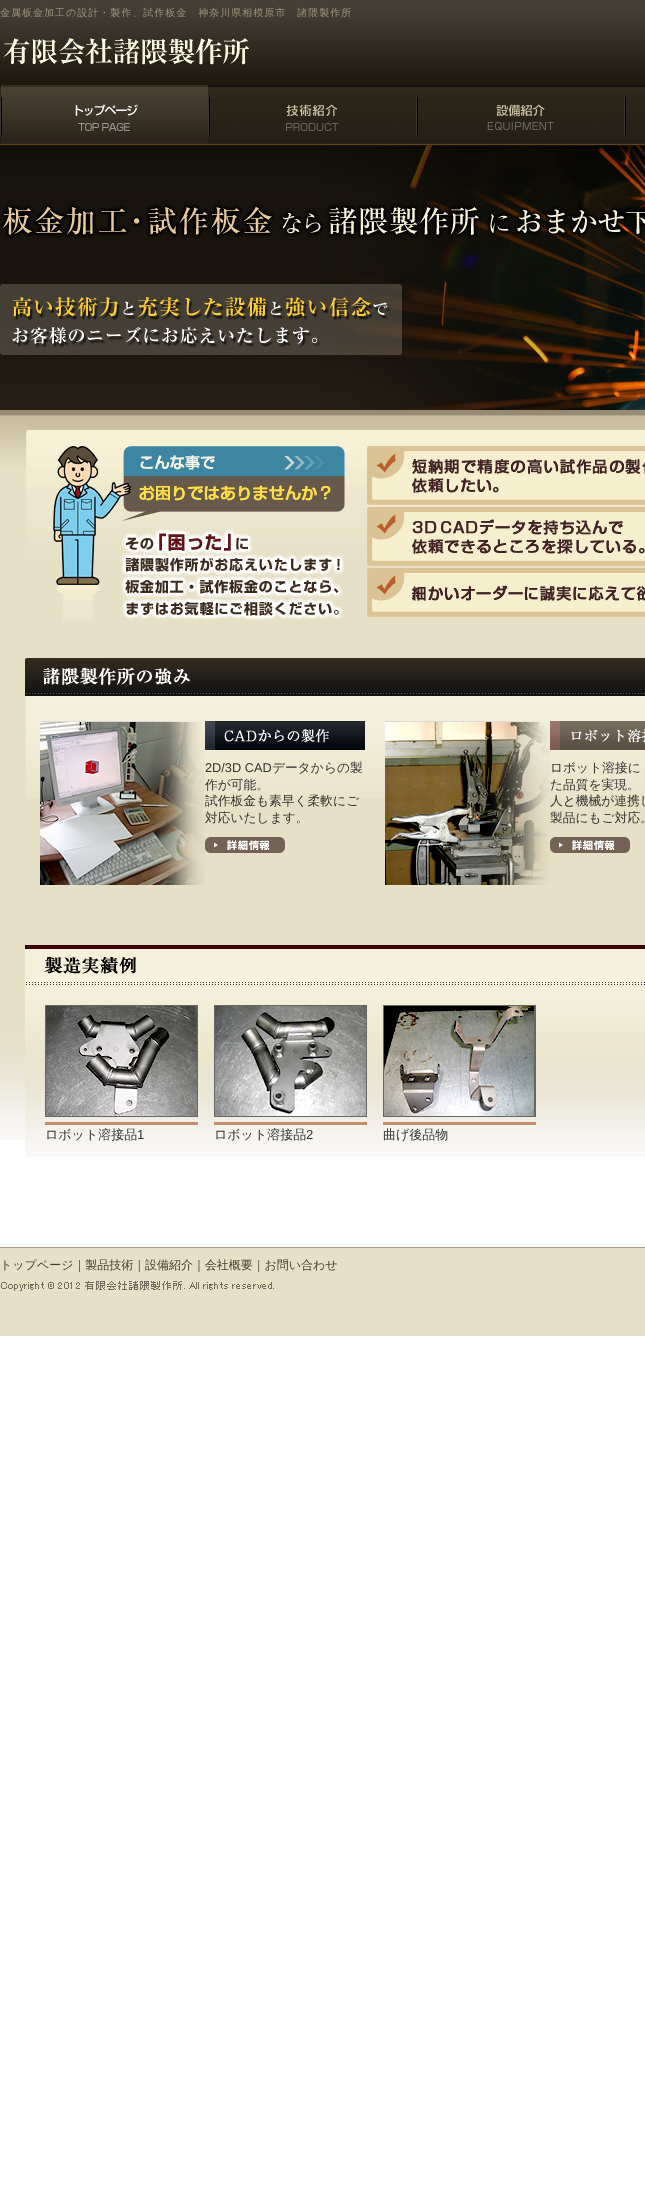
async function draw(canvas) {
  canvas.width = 645
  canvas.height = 2211
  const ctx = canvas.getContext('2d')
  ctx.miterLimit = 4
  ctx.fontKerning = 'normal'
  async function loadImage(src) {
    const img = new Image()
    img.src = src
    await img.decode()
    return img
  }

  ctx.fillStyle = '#fff'
  ctx.fillRect(0, 0, 645, 2211)
  ctx.drawImage(await loadImage('image0.png'), 0, 0, 645, 145)
  ctx.drawImage(await loadImage('image1.png'), 3, 38, 246, 27)
  ctx.letterSpacing = '1px'
  ctx.font = '500 10px WenQuanYi Zen Hei'
  ctx.fillStyle = '#9f927d'
  ctx.fillText('金属板金加工の設計・製作、試作板金　神奈川県相模原市　諸隈製作所', 0, 16)
  ctx.drawImage(await loadImage('image2.png'), 0, 85, 208, 59)
  ctx.drawImage(await loadImage('image3.png'), 208, 97, 208, 38)
  ctx.drawImage(await loadImage('image4.png'), 416, 97, 208, 38)
  ctx.drawImage(await loadImage('image5.png'), 624, 97, 2, 38)
  ctx.drawImage(await loadImage('image6.png'), 0, 145, 645, 265)
  ctx.drawImage(await loadImage('image7.png'), 0, 410, 645, 730)
  ctx.drawImage(await loadImage('image8.png'), 25, 430, 620, 191)
  ctx.drawImage(await loadImage('image9.png'), 25, 658, 620, 38)
  ctx.drawImage(await loadImage('image10.png'), 26, 696, 619, 102)
  ctx.drawImage(await loadImage('image11.png'), 40, 721, 165, 164)
  ctx.drawImage(await loadImage('image12.png'), 205, 721, 160, 29)
  ctx.letterSpacing = '0px'
  ctx.font = '12.75px Liberation Sans'
  ctx.fillStyle = '#333'
  ctx.fillText('2D/3D CAD', 205, 772)
  ctx.font = '500 12.75px WenQuanYi Zen Hei'
  ctx.fillText('データからの製', 272, 772)
  ctx.fillText('作が可能。', 205, 789)
  ctx.fillText('試作板金も素早く柔軟にご', 205, 805)
  ctx.fillText('対応いたします。', 205, 822)
  ctx.drawImage(await loadImage('image13.png'), 205, 837, 80, 16)
  ctx.drawImage(await loadImage('image14.png'), 385, 721, 165, 164)
  ctx.drawImage(await loadImage('image15.png'), 550, 721, 95, 29)
  ctx.fillText('ロボット溶接に', 550, 772)
  ctx.fillText('た品質を実現。', 550, 789)
  ctx.fillText('人と機械が連携し', 550, 805)
  ctx.fillText('製品にもご対応。', 550, 822)
  ctx.drawImage(await loadImage('image13.png'), 550, 837, 80, 16)
  ctx.drawImage(await loadImage('image16.png'), 25, 945, 620, 40)
  ctx.drawImage(await loadImage('image17.png'), 25, 985, 620, 172)
  ctx.strokeStyle = '#666'
  ctx.strokeRect(45.5, 1005.5, 152, 111)
  ctx.drawImage(await loadImage('image18.png'), 46, 1006, 151, 110)
  ctx.fillStyle = '#c48e6d'
  ctx.fillRect(45, 1122, 153, 3)
  ctx.font = '500 13px WenQuanYi Zen Hei'
  ctx.fillStyle = '#333'
  ctx.fillText('ロボット溶接品', 45, 1139)
  ctx.font = '13px Liberation Sans'
  ctx.fillText('1', 137, 1139)
  ctx.strokeRect(214.5, 1005.5, 152, 111)
  ctx.drawImage(await loadImage('image19.png'), 215, 1006, 151, 110)
  ctx.fillStyle = '#c48e6d'
  ctx.fillRect(214, 1122, 153, 3)
  ctx.font = '500 13px WenQuanYi Zen Hei'
  ctx.fillStyle = '#333'
  ctx.fillText('ロボット溶接品', 214, 1139)
  ctx.font = '13px Liberation Sans'
  ctx.fillText('2', 306, 1139)
  ctx.strokeRect(383.5, 1005.5, 152, 111)
  ctx.drawImage(await loadImage('image20.png'), 384, 1006, 151, 110)
  ctx.fillStyle = '#c48e6d'
  ctx.fillRect(383, 1122, 153, 3)
  ctx.font = '500 13px WenQuanYi Zen Hei'
  ctx.fillStyle = '#333'
  ctx.fillText('曲げ後品物', 383, 1139)
  ctx.fillStyle = '#e6e0c6'
  ctx.fillRect(0, 1248, 645, 88)
  ctx.fillStyle = '#ad9e86'
  ctx.fillRect(0, 1247, 645, 1)
  ctx.font = '500 12px WenQuanYi Zen Hei'
  ctx.fillStyle = '#473f33'
  ctx.fillText('トップページ｜製品技術｜設備紹介｜会社概要｜お問い合わせ', 0, 1269)
  ctx.drawImage(await loadImage('image21.png'), 1, 1281, 273, 10)
}

draw(document.querySelector('canvas'))
